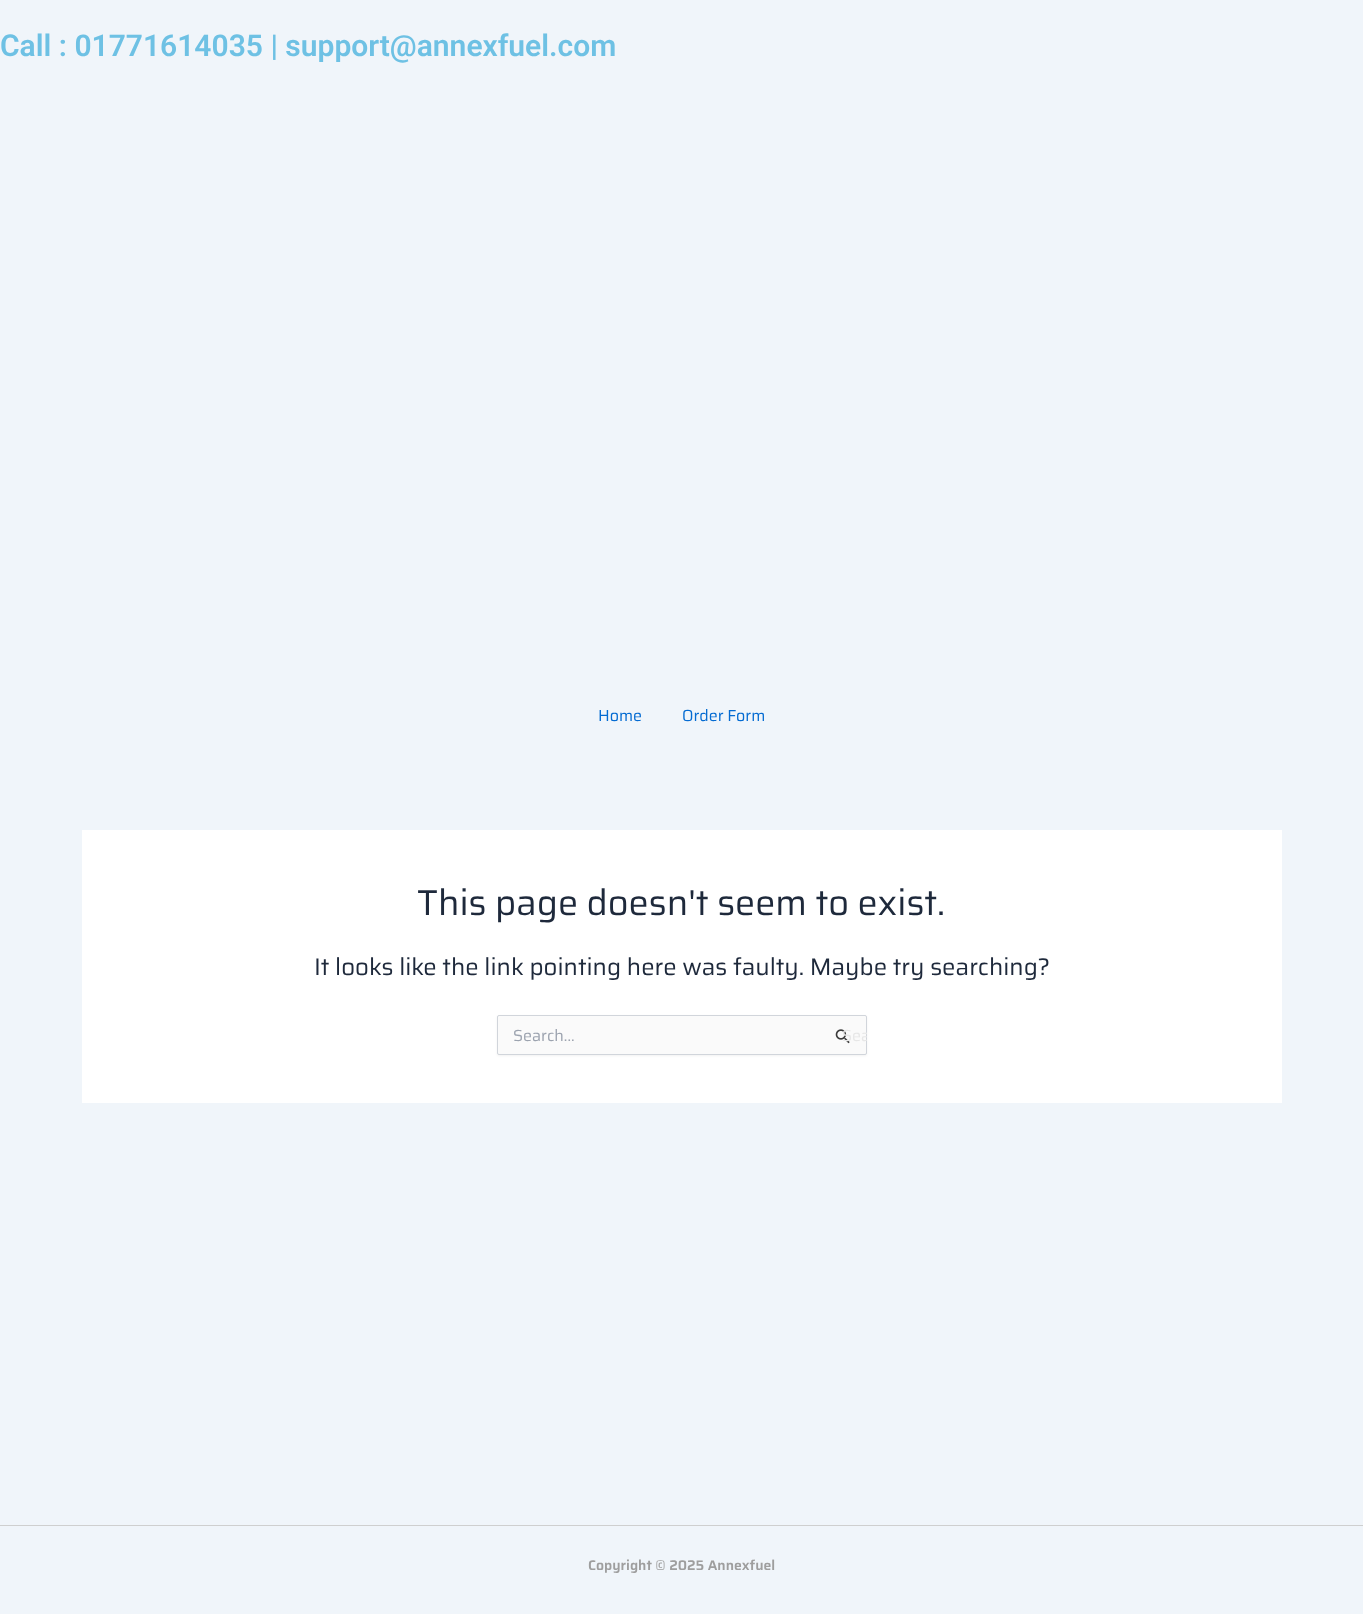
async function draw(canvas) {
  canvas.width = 1363
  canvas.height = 1614
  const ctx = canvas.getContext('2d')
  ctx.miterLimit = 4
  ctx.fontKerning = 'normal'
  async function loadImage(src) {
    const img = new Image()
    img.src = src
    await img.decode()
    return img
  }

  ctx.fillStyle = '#f0f5fa'
  ctx.fillRect(0, 0, 1363, 1614)
  ctx.font = '600 30px Roboto'
  ctx.fillStyle = '#6ec1e4'
  ctx.fillText('Call : 01771614035 | support@annexfuel.com', 0, 56)
  ctx.font = '16px Saira'
  ctx.fillStyle = '#046bd2'
  ctx.fillText('Home', 598, 721)
  ctx.fillText('Order Form', 682, 721)
  ctx.fillStyle = '#fff'
  ctx.fillRect(82, 830, 1200, 273)
  ctx.font = '36px Saira'
  ctx.fillStyle = '#1e293b'
  ctx.fillText('This page doesn\'t seem to exist.', 417, 915)
  ctx.font = '24px Saira'
  ctx.fillText('It looks like the link pointing here was faulty. Maybe try searching?', 314, 975)
  ctx.fillStyle = '#0000000d'
  ctx.filter = 'blur(1px)'
  ctx.beginPath()
  ctx.roundRect(497, 1016, 370, 40, 2)
  ctx.fill()
  ctx.filter = 'none'
  ctx.fillStyle = '#fafafa'
  ctx.beginPath()
  ctx.roundRect(497.5, 1015.5, 369, 39, 1.5)
  ctx.fill()
  ctx.strokeStyle = '#d1d5db'
  ctx.stroke()
  ctx.font = '16px Saira'
  ctx.fillStyle = '#9ca3af'
  ctx.fillText('Search...', 513, 1041)
  ctx.drawImage(await loadImage('image0.png'), 835, 1029, 15, 15)
  ctx.save()
  ctx.beginPath()
  ctx.roundRect(822, 1015, 45, 42, 2)
  ctx.clip()
  ctx.fillStyle = '#e7e7e7'
  ctx.fillText('Sea', 842, 1041)
  ctx.restore()
  ctx.fillStyle = '#cfcfcf'
  ctx.fillRect(0, 1525, 1363, 1)
  ctx.font = '600 14px Saira'
  ctx.fillStyle = '#9e9e9e'
  ctx.fillText('Copyright © 2025 Annexfuel', 588, 1570)
}

draw(document.querySelector('canvas'))
